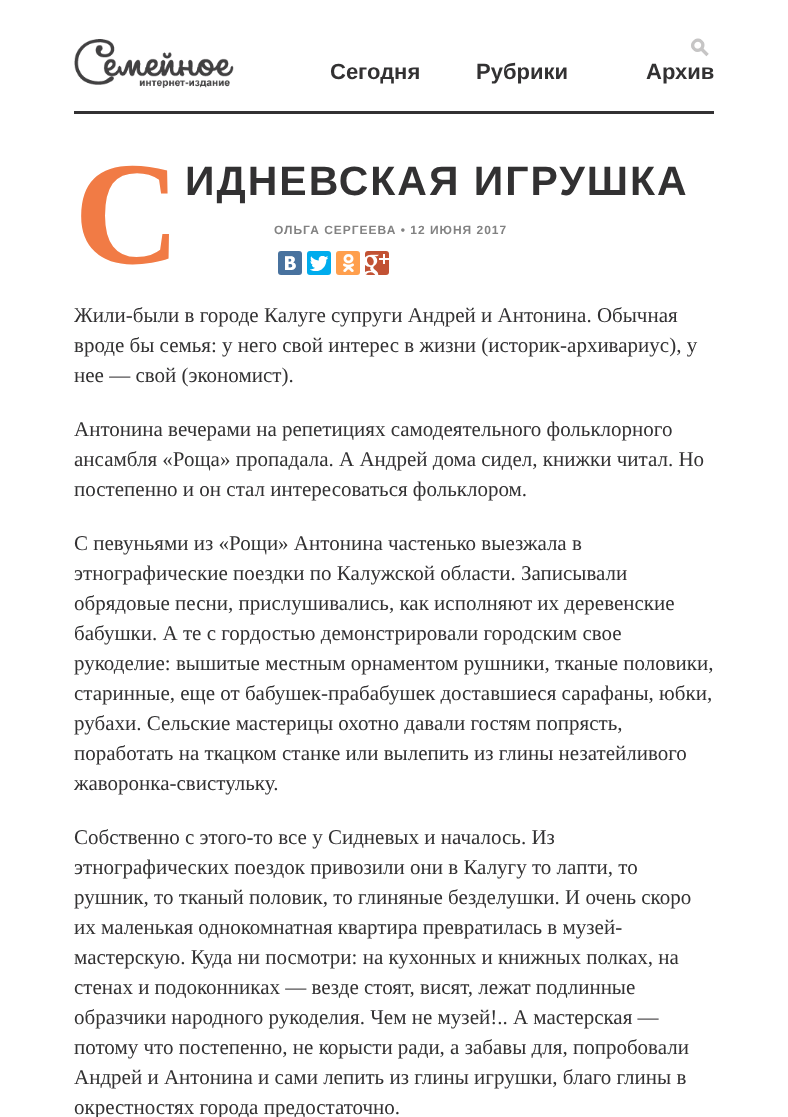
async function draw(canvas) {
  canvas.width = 788
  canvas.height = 1117
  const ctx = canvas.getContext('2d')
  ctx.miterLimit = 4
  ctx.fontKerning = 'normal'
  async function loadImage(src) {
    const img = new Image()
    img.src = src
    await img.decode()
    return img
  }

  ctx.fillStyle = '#fff'
  ctx.fillRect(0, 0, 788, 1117)
  ctx.drawImage(await loadImage('image0.png'), 74, 39, 160, 49)
  ctx.drawImage(await loadImage('image1.png'), 691, 38, 18, 19)
  ctx.font = 'bold 22px Liberation Sans'
  ctx.fillStyle = '#323132'
  ctx.fillText('Сегодня', 330, 79)
  ctx.fillText('Рубрики', 476, 79)
  ctx.fillText('Архив', 646, 79)
  ctx.fillRect(74, 111, 640, 3)
  ctx.letterSpacing = '2px'
  ctx.font = 'bold 147px Liberation Serif'
  ctx.fillStyle = '#f17b45'
  ctx.fillText('С', 74, 263)
  ctx.font = 'bold 41px Liberation Sans'
  ctx.fillStyle = '#323132'
  ctx.fillText('ИДНЕВСКАЯ ИГРУШКА', 185, 195)
  ctx.letterSpacing = '1px'
  ctx.font = 'bold 12px Liberation Sans'
  ctx.fillStyle = '#828282'
  ctx.fillText('ОЛЬГА СЕРГЕЕВА • 12 ИЮНЯ 2017', 274, 234)
  ctx.fillStyle = '#48729e'
  ctx.beginPath()
  ctx.roundRect(278, 251, 24, 24, 3)
  ctx.fill()
  ctx.drawImage(await loadImage('image2.png'), 285, 256, 11, 14)
  ctx.fillStyle = '#00aced'
  ctx.beginPath()
  ctx.roundRect(307, 251, 24, 24, 3)
  ctx.fill()
  ctx.drawImage(await loadImage('image3.png'), 310, 256, 18, 15)
  ctx.fillStyle = '#ff9f4d'
  ctx.beginPath()
  ctx.roundRect(336, 251, 24, 24, 3)
  ctx.fill()
  ctx.drawImage(await loadImage('image4.png'), 343, 254, 11, 18)
  ctx.fillStyle = '#c25234'
  ctx.beginPath()
  ctx.roundRect(365, 251, 24, 24, 3)
  ctx.fill()
  ctx.drawImage(await loadImage('image5.png'), 365, 254, 24, 21)
  ctx.letterSpacing = '0px'
  ctx.font = '21px Liberation Serif'
  ctx.fillStyle = '#323132'
  ctx.fillText('Жили-были в городе Калуге супруги Андрей и Антонина. Обычная', 74, 322)
  ctx.fillText('вроде бы семья: у него свой интерес в жизни (историк-архивариус), у', 74, 352)
  ctx.fillText('нее — свой (экономист).', 74, 382)
  ctx.fillText('Антонина вечерами на репетициях самодеятельного фольклорного', 74, 436)
  ctx.fillText('ансамбля «Роща» пропадала. А Андрей дома сидел, книжки читал. Но', 74, 466)
  ctx.fillText('постепенно и он стал интересоваться фольклором.', 74, 496)
  ctx.fillText('С певуньями из «Рощи» Антонина частенько выезжала в', 74, 550)
  ctx.fillText('этнографические поездки по Калужской области. Записывали', 74, 580)
  ctx.fillText('обрядовые песни, прислушивались, как исполняют их деревенские', 74, 610)
  ctx.fillText('бабушки. А те с гордостью демонстрировали городским свое', 74, 640)
  ctx.fillText('рукоделие: вышитые местным орнаментом рушники, тканые половики,', 74, 670)
  ctx.fillText('старинные, еще от бабушек-прабабушек доставшиеся сарафаны, юбки,', 74, 700)
  ctx.fillText('рубахи. Сельские мастерицы охотно давали гостям попрясть,', 74, 730)
  ctx.fillText('поработать на ткацком станке или вылепить из глины незатейливого', 74, 760)
  ctx.fillText('жаворонка-свистульку.', 74, 790)
  ctx.fillText('Собственно с этого-то все у Сидневых и началось. Из', 74, 844)
  ctx.fillText('этнографических поездок привозили они в Калугу то лапти, то', 74, 874)
  ctx.fillText('рушник, то тканый половик, то глиняные безделушки. И очень скоро', 74, 904)
  ctx.fillText('их маленькая однокомнатная квартира превратилась в музей-', 74, 934)
  ctx.fillText('мастерскую. Куда ни посмотри: на кухонных и книжных полках, на', 74, 964)
  ctx.fillText('стенах и подоконниках — везде стоят, висят, лежат подлинные', 74, 994)
  ctx.fillText('образчики народного рукоделия. Чем не музей!.. А мастерская —', 74, 1024)
  ctx.fillText('потому что постепенно, не корысти ради, а забавы для, попробовали', 74, 1054)
  ctx.fillText('Андрей и Антонина и сами лепить из глины игрушки, благо глины в', 74, 1084)
  ctx.fillText('окрестностях города предостаточно.', 74, 1114)
}

draw(document.querySelector('canvas'))
